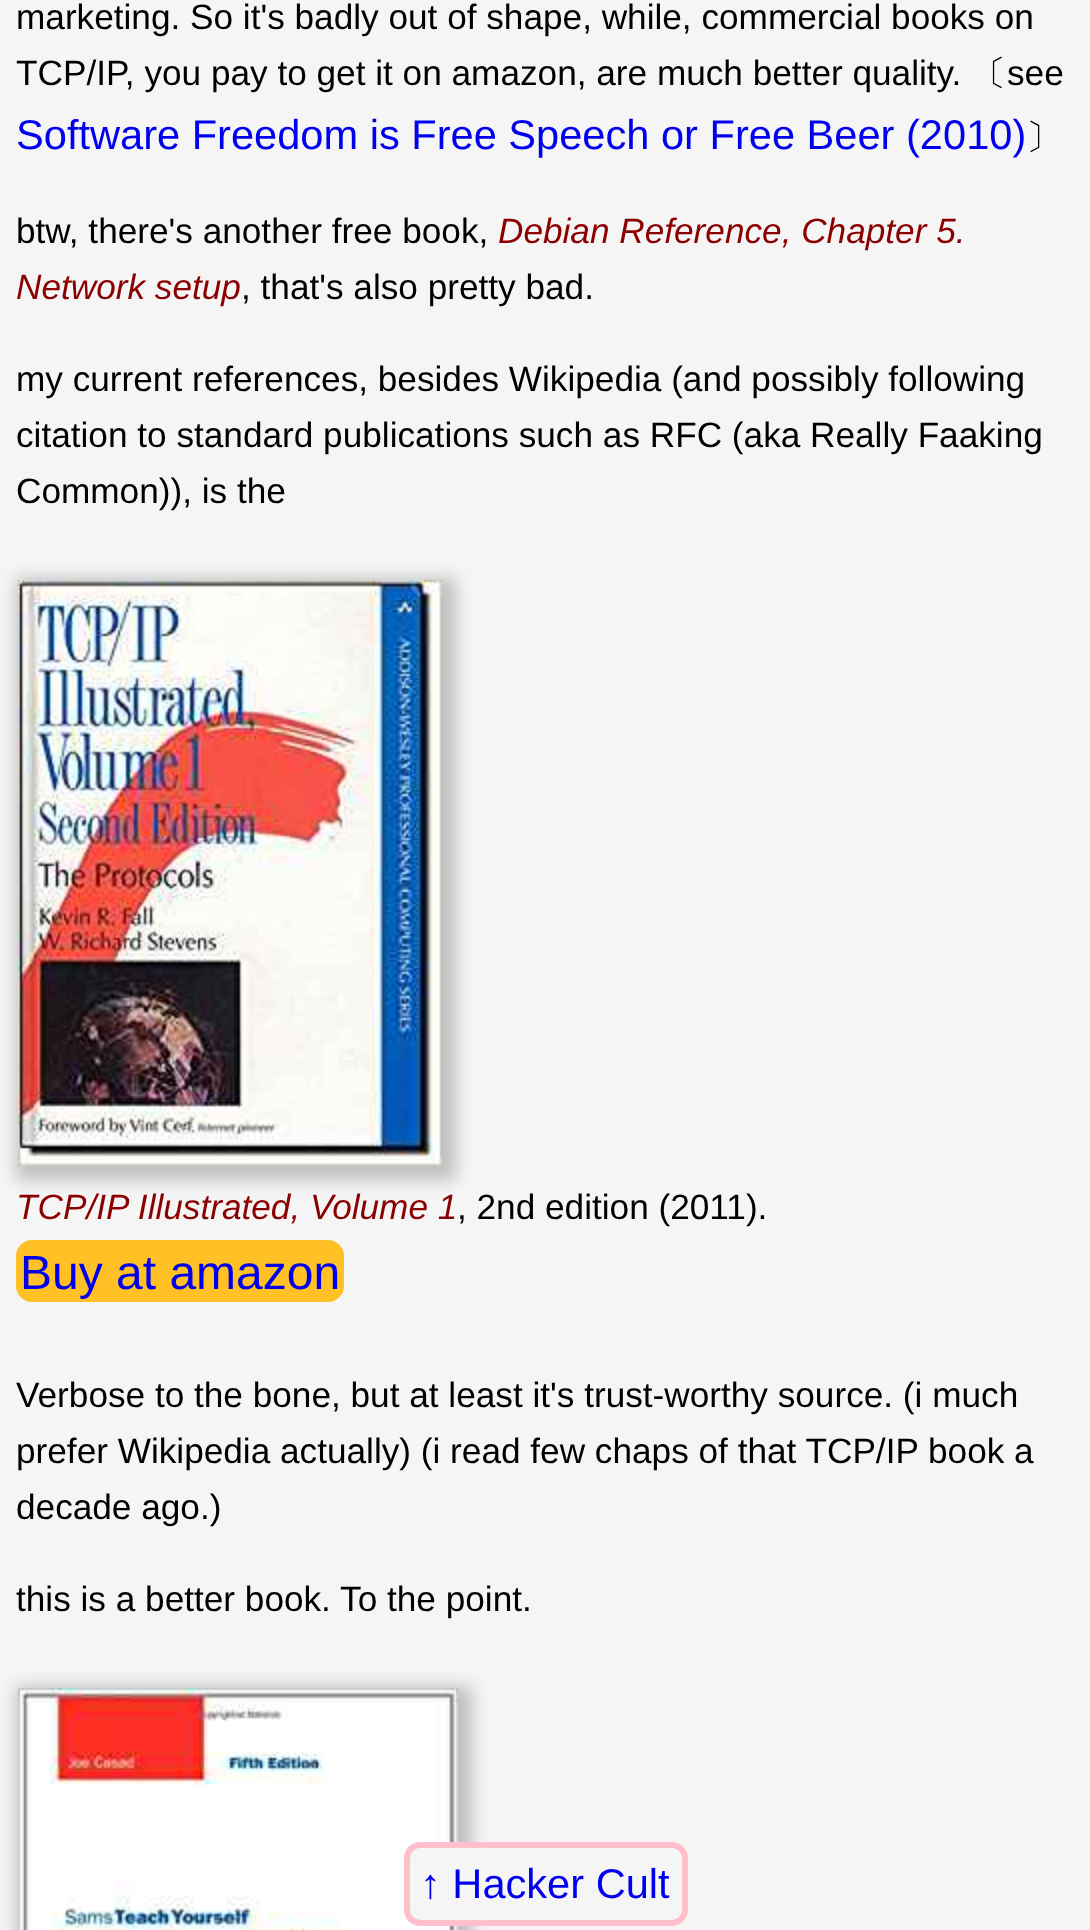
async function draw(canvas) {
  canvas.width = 1090
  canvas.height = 1930
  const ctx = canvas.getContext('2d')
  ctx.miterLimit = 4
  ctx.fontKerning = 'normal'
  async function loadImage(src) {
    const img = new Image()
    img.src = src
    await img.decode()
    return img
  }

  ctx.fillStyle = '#f5f5f5'
  ctx.fillRect(0, 0, 1090, 1930)
  ctx.font = '35.2px Liberation Sans'
  ctx.fillStyle = '#000'
  ctx.fillText('marketing. So it\'s badly out of shape, while, commercial books on', 16, 29)
  ctx.fillText('TCP/IP, you pay to get it on amazon, are much better quality.', 16, 85)
  ctx.font = '500 35.2px WenQuanYi Zen Hei'
  ctx.fillText('〔', 971, 85)
  ctx.font = '35.2px Liberation Sans'
  ctx.fillText('see', 1007, 85)
  ctx.font = '41.6px Liberation Sans'
  ctx.fillStyle = '#00e'
  ctx.fillText('Software Freedom is Free Speech or Free Beer (2010)', 16, 149)
  ctx.font = '500 35.2px WenQuanYi Zen Hei'
  ctx.fillStyle = '#000'
  ctx.fillText('〕', 1026, 149)
  ctx.font = '35.2px Liberation Sans'
  ctx.fillText('btw, there\'s another free book,', 16, 243)
  ctx.font = 'italic 35.2px Liberation Sans'
  ctx.fillStyle = '#8b0000'
  ctx.fillText('Debian Reference, Chapter 5.', 498, 243)
  ctx.fillText('Network setup', 16, 299)
  ctx.font = '35.2px Liberation Sans'
  ctx.fillStyle = '#000'
  ctx.fillText(', that\'s also pretty bad.', 241, 299)
  ctx.fillText('my current references, besides Wikipedia (and possibly following', 16, 391)
  ctx.fillText('citation to standard publications such as RFC (aka Really Faaking', 16, 447)
  ctx.fillText('Common)), is the', 16, 503)
  ctx.fillStyle = '#c0c0c0'
  ctx.filter = 'blur(8px)'
  ctx.beginPath()
  ctx.rect(16, 578, 440, 602)
  ctx.fill()
  ctx.filter = 'none'
  ctx.drawImage(await loadImage('image0.png'), 18, 580, 424, 586)
  ctx.font = 'italic 35.2px Liberation Sans'
  ctx.fillStyle = '#8b0000'
  ctx.fillText('TCP/IP Illustrated, Volume 1', 16, 1219)
  ctx.font = '35.2px Liberation Sans'
  ctx.fillStyle = '#000'
  ctx.fillText(', 2nd edition (2011).', 457, 1219)
  ctx.fillStyle = '#ffc125'
  ctx.beginPath()
  ctx.roundRect(16, 1240, 328, 62, 16)
  ctx.fill()
  ctx.font = '48px Liberation Sans'
  ctx.fillStyle = '#00e'
  ctx.fillText('Buy at amazon', 20, 1289)
  ctx.font = '35.2px Liberation Sans'
  ctx.fillStyle = '#000'
  ctx.fillText('Verbose to the bone, but at least it\'s trust-worthy source. (i much', 16, 1407)
  ctx.fillText('prefer Wikipedia actually) (i read few chaps of that TCP/IP book a', 16, 1463)
  ctx.fillText('decade ago.)', 16, 1519)
  ctx.fillText('this is a better book. To the point.', 16, 1611)
  ctx.fillStyle = '#c0c0c0'
  ctx.filter = 'blur(8px)'
  ctx.beginPath()
  ctx.rect(16, 1686, 456, 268)
  ctx.fill()
  ctx.filter = 'none'
  ctx.drawImage(await loadImage('image1.png'), 18, 1688, 440, 242)
  ctx.fillStyle = '#f5f5f5'
  ctx.beginPath()
  ctx.roundRect(407, 1845, 278, 78, 13)
  ctx.fill()
  ctx.strokeStyle = '#ffc0cb'
  ctx.lineWidth = 6
  ctx.stroke()
  ctx.font = '41.6px Liberation Sans'
  ctx.fillStyle = '#00e'
  ctx.fillText('↑ Hacker Cult', 420, 1898)
}

draw(document.querySelector('canvas'))
